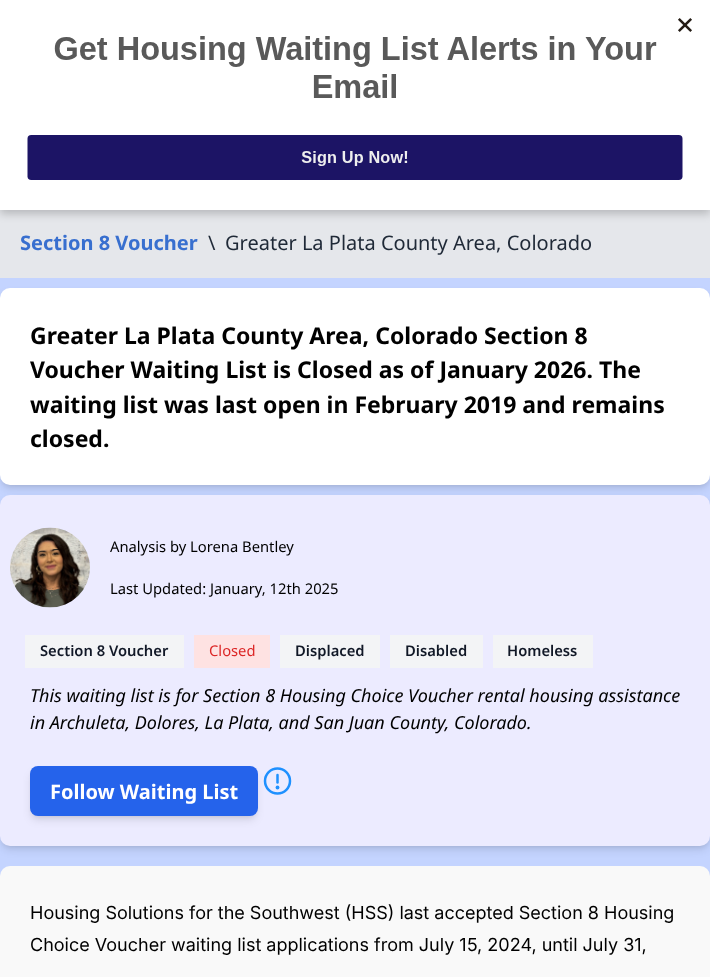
async function draw(canvas) {
  canvas.width = 710
  canvas.height = 977
  const ctx = canvas.getContext('2d')
  ctx.miterLimit = 4
  ctx.fontKerning = 'normal'
  async function loadImage(src) {
    const img = new Image()
    img.src = src
    await img.decode()
    return img
  }

  ctx.fillStyle = '#c4d4ff'
  ctx.fillRect(0, 0, 710, 977)
  ctx.fillStyle = '#e5e7eb'
  ctx.fillRect(0, 210, 710, 68)
  ctx.fillStyle = '#00000033'
  ctx.filter = 'blur(4px)'
  ctx.beginPath()
  ctx.rect(0, 4, 710, 210)
  ctx.fill()
  ctx.filter = 'none'
  ctx.fillStyle = '#fff'
  ctx.fillRect(0, 0, 710, 210)
  ctx.drawImage(await loadImage('image0.png'), 27, 18, 665, 162)
  ctx.font = 'bold 20px Noto Sans'
  ctx.fillStyle = '#386fcf'
  ctx.fillText('Section 8 Voucher', 20, 250)
  ctx.font = '20px Noto Sans'
  ctx.fillStyle = '#1f2937'
  ctx.fillText('\\', 208, 250)
  ctx.fillText('Greater La Plata County Area, Colorado', 225, 250)
  ctx.fillStyle = '#0000001a'
  ctx.filter = 'blur(2.5px)'
  ctx.beginPath()
  ctx.roundRect(3, 293, 705, 192, 8)
  ctx.fill()
  ctx.filter = 'none'
  ctx.filter = 'blur(4px)'
  ctx.beginPath()
  ctx.roundRect(1, 294, 708, 195, 9)
  ctx.fill()
  ctx.filter = 'none'
  ctx.fillStyle = '#fff'
  ctx.beginPath()
  ctx.roundRect(0, 288, 710, 197, 10)
  ctx.fill()
  ctx.font = 'bold 23px Noto Sans'
  ctx.fillStyle = '#000'
  ctx.fillText('Greater La Plata County Area, Colorado Section 8', 30, 344)
  ctx.fillText('Voucher Waiting List is Closed as of January 2026. The', 30, 378)
  ctx.fillText('waiting list was last open in February 2019 and remains', 30, 413)
  ctx.fillText('closed.', 30, 447)
  ctx.fillStyle = '#0000001a'
  ctx.filter = 'blur(2.5px)'
  ctx.beginPath()
  ctx.roundRect(3, 500, 705, 346, 8)
  ctx.fill()
  ctx.filter = 'none'
  ctx.filter = 'blur(4px)'
  ctx.beginPath()
  ctx.roundRect(1, 501, 708, 349, 9)
  ctx.fill()
  ctx.filter = 'none'
  ctx.fillStyle = '#ecebff'
  ctx.beginPath()
  ctx.roundRect(0, 495, 710, 351, 10)
  ctx.fill()
  ctx.drawImage(await loadImage('image1.png'), 10, 527, 80, 81)
  ctx.font = '14.75px Noto Sans'
  ctx.fillStyle = '#000'
  ctx.fillText('Analysis by Lorena Bentley', 110, 552)
  ctx.fillText('Last Updated: January, 12th 2025', 110, 594)
  ctx.fillStyle = '#f3f4f6'
  ctx.fillRect(25, 635, 159, 33)
  ctx.font = '600 14.75px Noto Sans'
  ctx.fillStyle = '#111827'
  ctx.fillText('Section 8 Voucher', 40, 656)
  ctx.fillStyle = '#fee2e2'
  ctx.fillRect(194, 635, 76, 33)
  ctx.font = '14.75px Noto Sans'
  ctx.fillStyle = '#dc2626'
  ctx.fillText('Closed', 209, 656)
  ctx.fillStyle = '#f3f4f6'
  ctx.fillRect(280, 635, 100, 33)
  ctx.font = '600 14.75px Noto Sans'
  ctx.fillStyle = '#111827'
  ctx.fillText('Displaced', 295, 656)
  ctx.fillStyle = '#f3f4f6'
  ctx.fillRect(390, 635, 93, 33)
  ctx.fillStyle = '#111827'
  ctx.fillText('Disabled', 405, 656)
  ctx.fillStyle = '#f3f4f6'
  ctx.fillRect(493, 635, 100, 33)
  ctx.fillStyle = '#111827'
  ctx.fillText('Homeless', 507, 656)
  ctx.font = 'italic 18px Noto Sans'
  ctx.fillStyle = '#000'
  ctx.fillText('This waiting list is for Section 8 Housing Choice Voucher rental housing assistance', 30, 702)
  ctx.fillText('in Archuleta, Dolores, La Plata, and San Juan County, Colorado.', 30, 729)
  ctx.fillStyle = '#0000001a'
  ctx.filter = 'blur(2.5px)'
  ctx.beginPath()
  ctx.roundRect(33, 771, 222, 45, 5)
  ctx.fill()
  ctx.filter = 'none'
  ctx.filter = 'blur(4px)'
  ctx.beginPath()
  ctx.roundRect(31, 773, 225, 47, 6)
  ctx.fill()
  ctx.filter = 'none'
  ctx.fillStyle = '#2563eb'
  ctx.beginPath()
  ctx.roundRect(30, 766, 228, 50, 8)
  ctx.fill()
  ctx.font = 'bold 20px Noto Sans'
  ctx.fillStyle = '#fff'
  ctx.fillText('Follow Waiting List', 50, 799)
  ctx.beginPath()
  ctx.arc(277.5, 781, 12.5, 0, 2 * Math.PI)
  ctx.strokeStyle = '#1e90ff'
  ctx.lineWidth = 2.5
  ctx.stroke()
  ctx.beginPath()
  ctx.moveTo(277.5, 775)
  ctx.lineTo(277.5, 782.5)
  ctx.lineCap = 'round'
  ctx.stroke()
  ctx.fillStyle = '#1e90ff'
  ctx.beginPath()
  ctx.arc(277.5, 787.5, 1.9, 0, 2 * Math.PI)
  ctx.fill()
  ctx.fillStyle = '#f9f9f9'
  ctx.beginPath()
  ctx.roundRect(0, 866, 710, 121, 10)
  ctx.fill()
  ctx.font = '18px Inter'
  ctx.fillStyle = '#000'
  ctx.fillText('Housing Solutions for the Southwest (HSS) last accepted Section 8 Housing', 30, 919)
  ctx.fillText('Choice Voucher waiting list applications from July 15, 2024, until July 31,', 30, 951)
}

draw(document.querySelector('canvas'))
